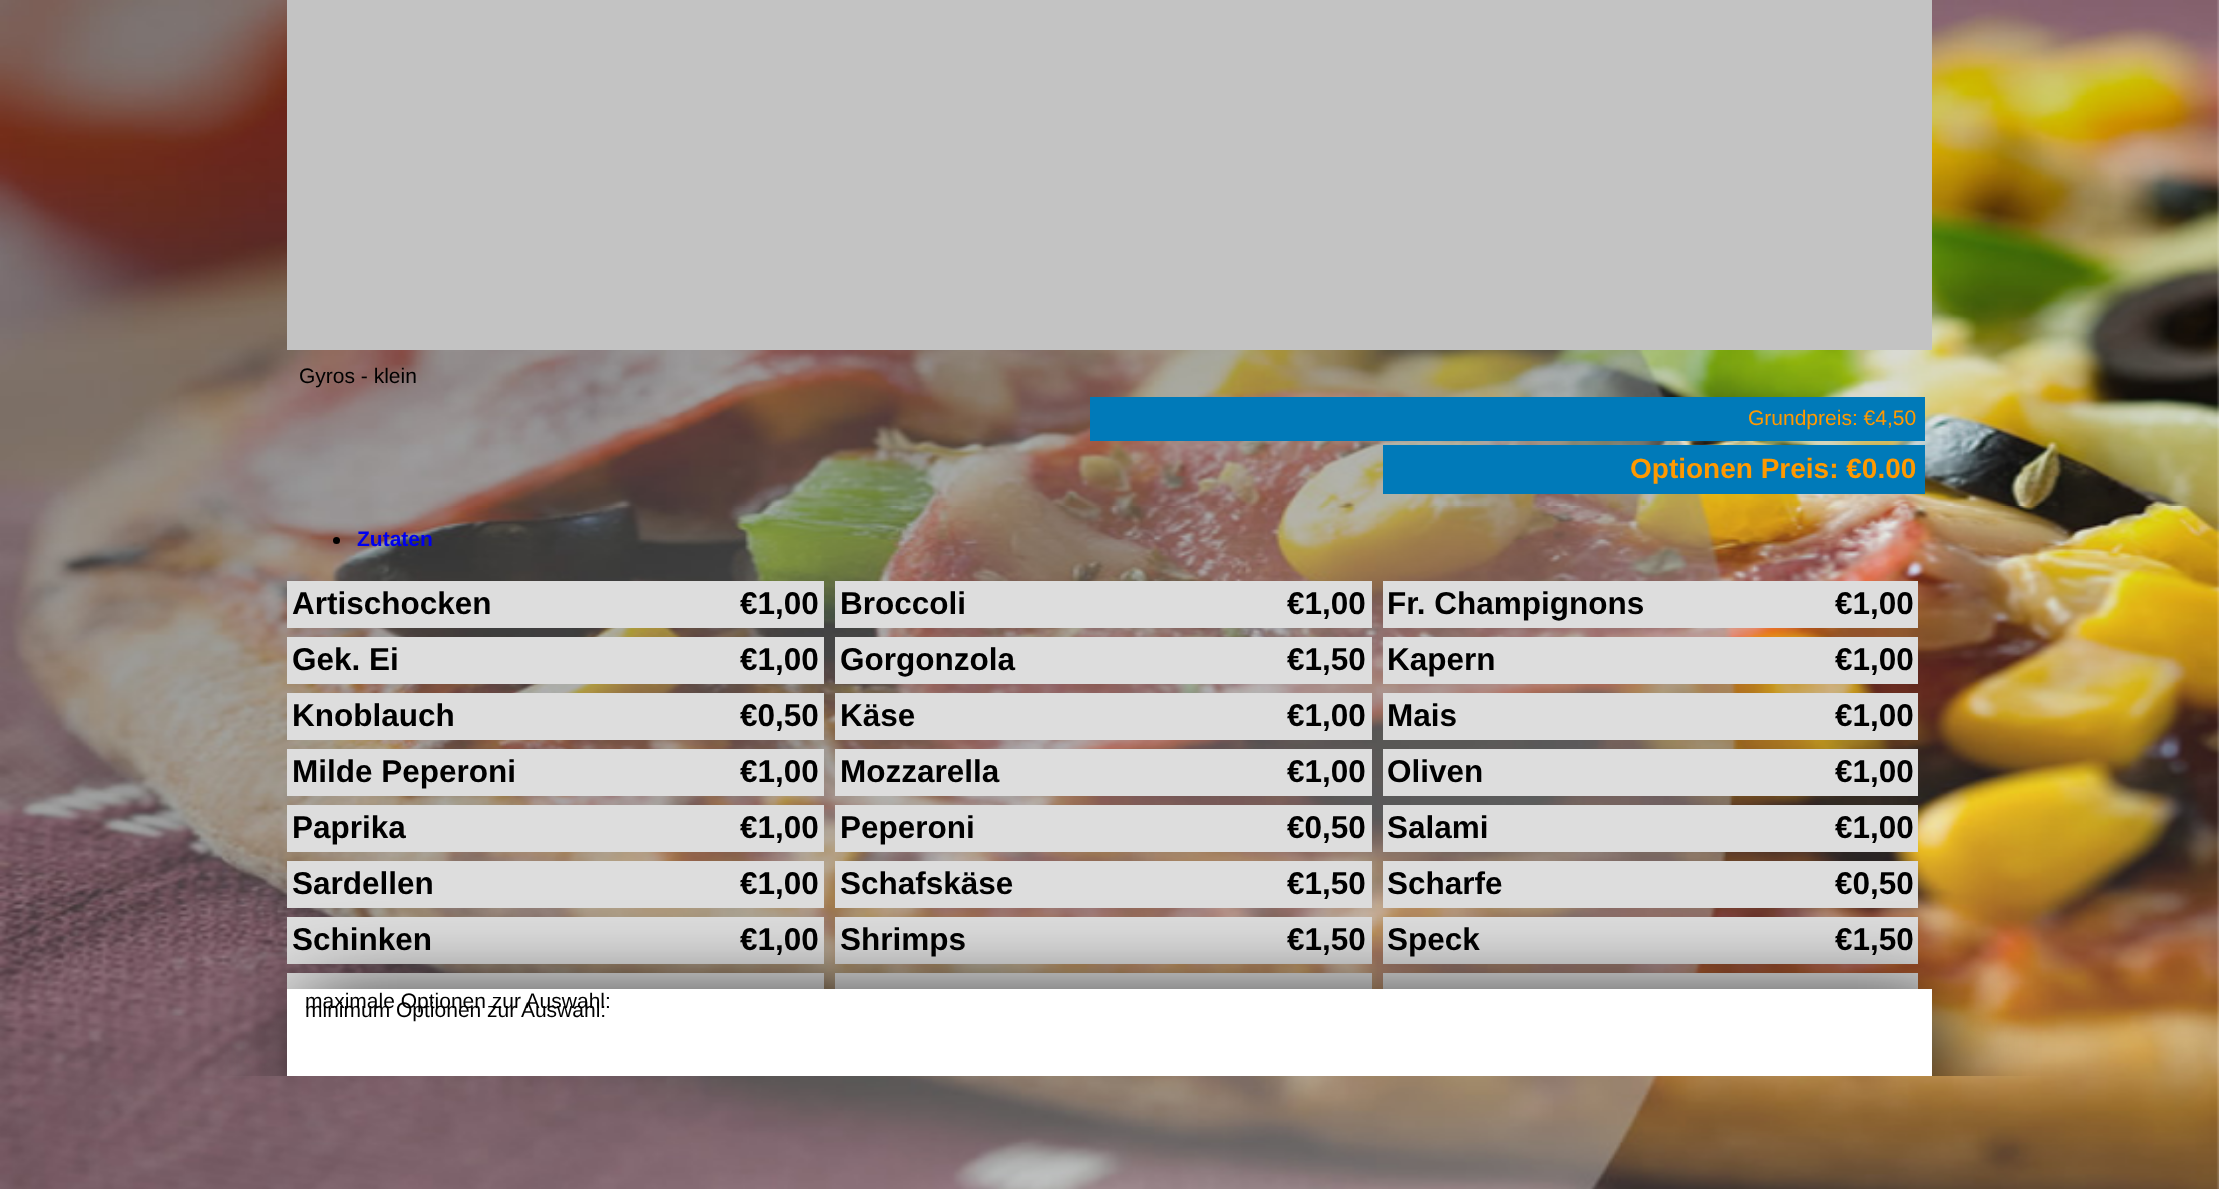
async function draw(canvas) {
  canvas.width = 2219
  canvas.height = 1189
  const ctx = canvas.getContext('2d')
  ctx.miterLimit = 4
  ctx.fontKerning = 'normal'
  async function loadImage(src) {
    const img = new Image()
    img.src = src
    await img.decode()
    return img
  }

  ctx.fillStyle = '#fff'
  ctx.fillRect(0, 0, 2219, 1189)
  ctx.drawImage(await loadImage('image0.png'), 0, 0, 2219, 1189)
  ctx.fillStyle = '#c3c3c3'
  ctx.fillRect(287, 0, 1645, 350)
  ctx.font = '21px Liberation Sans'
  ctx.fillStyle = '#000'
  ctx.fillText('Gyros - klein', 299, 383)
  ctx.fillStyle = '#007ab9'
  ctx.fillRect(1090, 397, 835, 44)
  ctx.fillStyle = '#f90'
  ctx.fillText('Grundpreis: €4,50', 1748, 425)
  ctx.fillStyle = '#007ab9'
  ctx.fillRect(1383, 445, 542, 49)
  ctx.font = 'bold 28px Liberation Sans'
  ctx.fillStyle = '#f90'
  ctx.fillText('Optionen Preis: €0.00', 1630, 478)
  ctx.fillStyle = '#000'
  ctx.beginPath()
  ctx.arc(336.5, 540.5, 3.5, 0, 2 * Math.PI)
  ctx.fill()
  ctx.font = 'bold 21px Liberation Sans'
  ctx.fillStyle = '#00e'
  ctx.fillText('Zutaten', 357, 546)
  ctx.fillStyle = '#ddd'
  ctx.fillRect(287, 581, 537, 47)
  ctx.font = 'bold 31.5px Liberation Sans'
  ctx.fillStyle = '#000'
  ctx.fillText('Artischocken', 292, 614)
  ctx.fillText('€1,00', 740, 614)
  ctx.fillStyle = '#ddd'
  ctx.fillRect(835, 581, 537, 47)
  ctx.fillStyle = '#000'
  ctx.fillText('Broccoli', 840, 614)
  ctx.fillText('€1,00', 1287, 614)
  ctx.fillStyle = '#ddd'
  ctx.fillRect(1383, 581, 535, 47)
  ctx.fillStyle = '#000'
  ctx.fillText('Fr. Champignons', 1387, 614)
  ctx.fillText('€1,00', 1835, 614)
  ctx.fillStyle = '#ddd'
  ctx.fillRect(287, 637, 537, 47)
  ctx.fillStyle = '#000'
  ctx.fillText('Gek. Ei', 292, 670)
  ctx.fillText('€1,00', 740, 670)
  ctx.fillStyle = '#ddd'
  ctx.fillRect(835, 637, 537, 47)
  ctx.fillStyle = '#000'
  ctx.fillText('Gorgonzola', 840, 670)
  ctx.fillText('€1,50', 1287, 670)
  ctx.fillStyle = '#ddd'
  ctx.fillRect(1383, 637, 535, 47)
  ctx.fillStyle = '#000'
  ctx.fillText('Kapern', 1387, 670)
  ctx.fillText('€1,00', 1835, 670)
  ctx.fillStyle = '#ddd'
  ctx.fillRect(287, 693, 537, 47)
  ctx.fillStyle = '#000'
  ctx.fillText('Knoblauch', 292, 726)
  ctx.fillText('€0,50', 740, 726)
  ctx.fillStyle = '#ddd'
  ctx.fillRect(835, 693, 537, 47)
  ctx.fillStyle = '#000'
  ctx.fillText('Käse', 840, 726)
  ctx.fillText('€1,00', 1287, 726)
  ctx.fillStyle = '#ddd'
  ctx.fillRect(1383, 693, 535, 47)
  ctx.fillStyle = '#000'
  ctx.fillText('Mais', 1387, 726)
  ctx.fillText('€1,00', 1835, 726)
  ctx.fillStyle = '#ddd'
  ctx.fillRect(287, 749, 537, 47)
  ctx.fillStyle = '#000'
  ctx.fillText('Milde Peperoni', 292, 782)
  ctx.fillText('€1,00', 740, 782)
  ctx.fillStyle = '#ddd'
  ctx.fillRect(835, 749, 537, 47)
  ctx.fillStyle = '#000'
  ctx.fillText('Mozzarella', 840, 782)
  ctx.fillText('€1,00', 1287, 782)
  ctx.fillStyle = '#ddd'
  ctx.fillRect(1383, 749, 535, 47)
  ctx.fillStyle = '#000'
  ctx.fillText('Oliven', 1387, 782)
  ctx.fillText('€1,00', 1835, 782)
  ctx.fillStyle = '#ddd'
  ctx.fillRect(287, 805, 537, 47)
  ctx.fillStyle = '#000'
  ctx.fillText('Paprika', 292, 838)
  ctx.fillText('€1,00', 740, 838)
  ctx.fillStyle = '#ddd'
  ctx.fillRect(835, 805, 537, 47)
  ctx.fillStyle = '#000'
  ctx.fillText('Peperoni', 840, 838)
  ctx.fillText('€0,50', 1287, 838)
  ctx.fillStyle = '#ddd'
  ctx.fillRect(1383, 805, 535, 47)
  ctx.fillStyle = '#000'
  ctx.fillText('Salami', 1387, 838)
  ctx.fillText('€1,00', 1835, 838)
  ctx.fillStyle = '#ddd'
  ctx.fillRect(287, 861, 537, 47)
  ctx.fillStyle = '#000'
  ctx.fillText('Sardellen', 292, 894)
  ctx.fillText('€1,00', 740, 894)
  ctx.fillStyle = '#ddd'
  ctx.fillRect(835, 861, 537, 47)
  ctx.fillStyle = '#000'
  ctx.fillText('Schafskäse', 840, 894)
  ctx.fillText('€1,50', 1287, 894)
  ctx.fillStyle = '#ddd'
  ctx.fillRect(1383, 861, 535, 47)
  ctx.fillStyle = '#000'
  ctx.fillText('Scharfe', 1387, 894)
  ctx.fillText('€0,50', 1835, 894)
  ctx.fillStyle = '#ddd'
  ctx.fillRect(287, 917, 537, 47)
  ctx.fillStyle = '#000'
  ctx.fillText('Schinken', 292, 950)
  ctx.fillText('€1,00', 740, 950)
  ctx.fillStyle = '#ddd'
  ctx.fillRect(835, 917, 537, 47)
  ctx.fillStyle = '#000'
  ctx.fillText('Shrimps', 840, 950)
  ctx.fillText('€1,50', 1287, 950)
  ctx.fillStyle = '#ddd'
  ctx.fillRect(1383, 917, 535, 47)
  ctx.fillStyle = '#000'
  ctx.fillText('Speck', 1387, 950)
  ctx.fillText('€1,50', 1835, 950)
  ctx.fillStyle = '#ddd'
  ctx.fillRect(287, 973, 537, 16)
  ctx.fillRect(835, 973, 537, 16)
  ctx.fillRect(1383, 973, 535, 16)
  ctx.save()
  ctx.beginPath()
  ctx.rect(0, 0, 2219, 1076)
  ctx.clip()
  ctx.fillStyle = '#000'
  ctx.filter = 'blur(44px)'
  ctx.beginPath()
  ctx.rect(305, 1006, 1645, 88)
  ctx.fill()
  ctx.filter = 'none'
  ctx.restore()
  ctx.fillStyle = '#fff'
  ctx.fillRect(287, 989, 1645, 87)
  ctx.font = '21px Liberation Sans'
  ctx.fillStyle = '#000'
  ctx.fillText('minimum Optionen zur Auswahl:', 305, 1017)
  ctx.fillText('maximale Optionen zur Auswahl:', 305, 1008)
}

draw(document.querySelector('canvas'))
